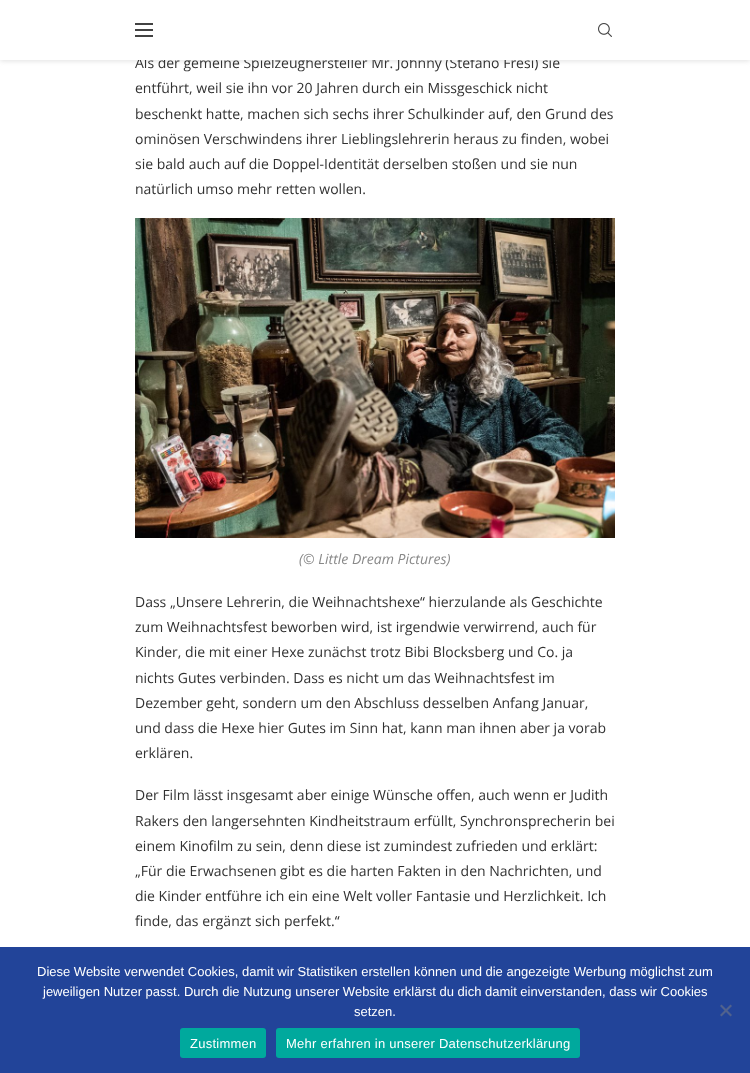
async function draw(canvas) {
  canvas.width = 750
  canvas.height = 1073
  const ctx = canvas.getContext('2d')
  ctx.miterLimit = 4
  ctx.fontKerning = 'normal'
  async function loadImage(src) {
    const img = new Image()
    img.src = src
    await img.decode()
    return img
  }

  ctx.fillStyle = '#fff'
  ctx.fillRect(0, 0, 750, 1073)
  ctx.fillStyle = '#bebebe75'
  ctx.filter = 'blur(2.5px)'
  ctx.beginPath()
  ctx.rect(0, 1, 750, 60)
  ctx.fill()
  ctx.filter = 'none'
  ctx.font = '14px Open Sans'
  ctx.fillStyle = '#313131'
  ctx.fillText('Als der gemeine Spielzeughersteller Mr. Johnny (Stefano Fresi) sie', 135, 68)
  ctx.fillStyle = '#fff'
  ctx.fillRect(0, 0, 750, 60)
  ctx.fillStyle = '#424242'
  ctx.fillRect(135, 23, 18, 2)
  ctx.fillRect(135, 29, 18, 2)
  ctx.fillRect(135, 35, 18, 2)
  ctx.drawImage(await loadImage('image0.png'), 598, 23, 14, 14)
  ctx.fillStyle = '#313131'
  ctx.fillText('entführt, weil sie ihn vor 20 Jahren durch ein Missgeschick nicht', 135, 93)
  ctx.fillText('beschenkt hatte, machen sich sechs ihrer Schulkinder auf, den Grund des', 135, 119)
  ctx.fillText('ominösen Verschwindens ihrer Lieblingslehrerin heraus zu finden, wobei', 135, 144)
  ctx.fillText('sie bald auch auf die Doppel-Identität derselben stoßen und sie nun', 135, 169)
  ctx.fillText('natürlich umso mehr retten wollen.', 135, 194)
  ctx.drawImage(await loadImage('image1.png'), 135, 218, 480, 320)
  ctx.font = 'italic 14px Open Sans'
  ctx.fillStyle = '#888'
  ctx.fillText('(© Little Dream Pictures)', 299, 564)
  ctx.font = '14px Open Sans'
  ctx.fillStyle = '#313131'
  ctx.fillText('Dass „Unsere Lehrerin, die Weihnachtshexe“ hierzulande als Geschichte', 135, 607)
  ctx.fillText('zum Weihnachtsfest beworben wird, ist irgendwie verwirrend, auch für', 135, 632)
  ctx.fillText('Kinder, die mit einer Hexe zunächst trotz Bibi Blocksberg und Co. ja', 135, 657)
  ctx.fillText('nichts Gutes verbinden. Dass es nicht um das Weihnachtsfest im', 135, 683)
  ctx.fillText('Dezember geht, sondern um den Abschluss desselben Anfang Januar,', 135, 708)
  ctx.fillText('und dass die Hexe hier Gutes im Sinn hat, kann man ihnen aber ja vorab', 135, 733)
  ctx.fillText('erklären.', 135, 758)
  ctx.fillText('Der Film lässt insgesamt aber einige Wünsche offen, auch wenn er Judith', 135, 800)
  ctx.fillText('Rakers den langersehnten Kindheitstraum erfüllt, Synchronsprecherin bei', 135, 826)
  ctx.fillText('einem Kinofilm zu sein, denn diese ist zumindest zufrieden und erklärt:', 135, 851)
  ctx.fillText('„Für die Erwachsenen gibt es die harten Fakten in den Nachrichten, und', 135, 876)
  ctx.fillText('die Kinder entführe ich ein eine Welt voller Fantasie und Herzlichkeit. Ich', 135, 901)
  ctx.fillText('finde, das ergänzt sich perfekt.“', 135, 926)
  ctx.fillStyle = '#249'
  ctx.fillRect(0, 947, 750, 126)
  ctx.font = '13px Liberation Sans'
  ctx.fillStyle = '#fff'
  ctx.fillText('Diese Website verwendet Cookies, damit wir Statistiken erstellen können und die angezeigte Werbung möglichst zum', 37, 976)
  ctx.fillText('jeweiligen Nutzer passt. Durch die Nutzung unserer Website erklärst du dich damit einverstanden, dass wir Cookies', 43, 996)
  ctx.fillText('setzen.', 354, 1016)
  ctx.fillStyle = '#51628d'
  ctx.beginPath()
  ctx.moveTo(730.5, 1004.5)
  ctx.lineTo(732, 1006)
  ctx.lineTo(721.5, 1016.5)
  ctx.lineTo(720, 1015)
  ctx.closePath()
  ctx.fill()
  ctx.beginPath()
  ctx.moveTo(720, 1006)
  ctx.lineTo(721.5, 1004.5)
  ctx.lineTo(732, 1015)
  ctx.lineTo(730.5, 1016.5)
  ctx.closePath()
  ctx.fill()
  ctx.fillStyle = '#00a99d'
  ctx.beginPath()
  ctx.roundRect(180, 1028, 86, 30, 3)
  ctx.fill()
  ctx.letterSpacing = '0.25px'
  ctx.fillStyle = '#fff'
  ctx.fillText('Zustimmen', 190, 1048)
  ctx.fillStyle = '#00a99d'
  ctx.beginPath()
  ctx.roundRect(276, 1028, 304, 30, 3)
  ctx.fill()
  ctx.fillStyle = '#fff'
  ctx.fillText('Mehr erfahren in unserer Datenschutzerklärung', 286, 1048)
}

draw(document.querySelector('canvas'))
